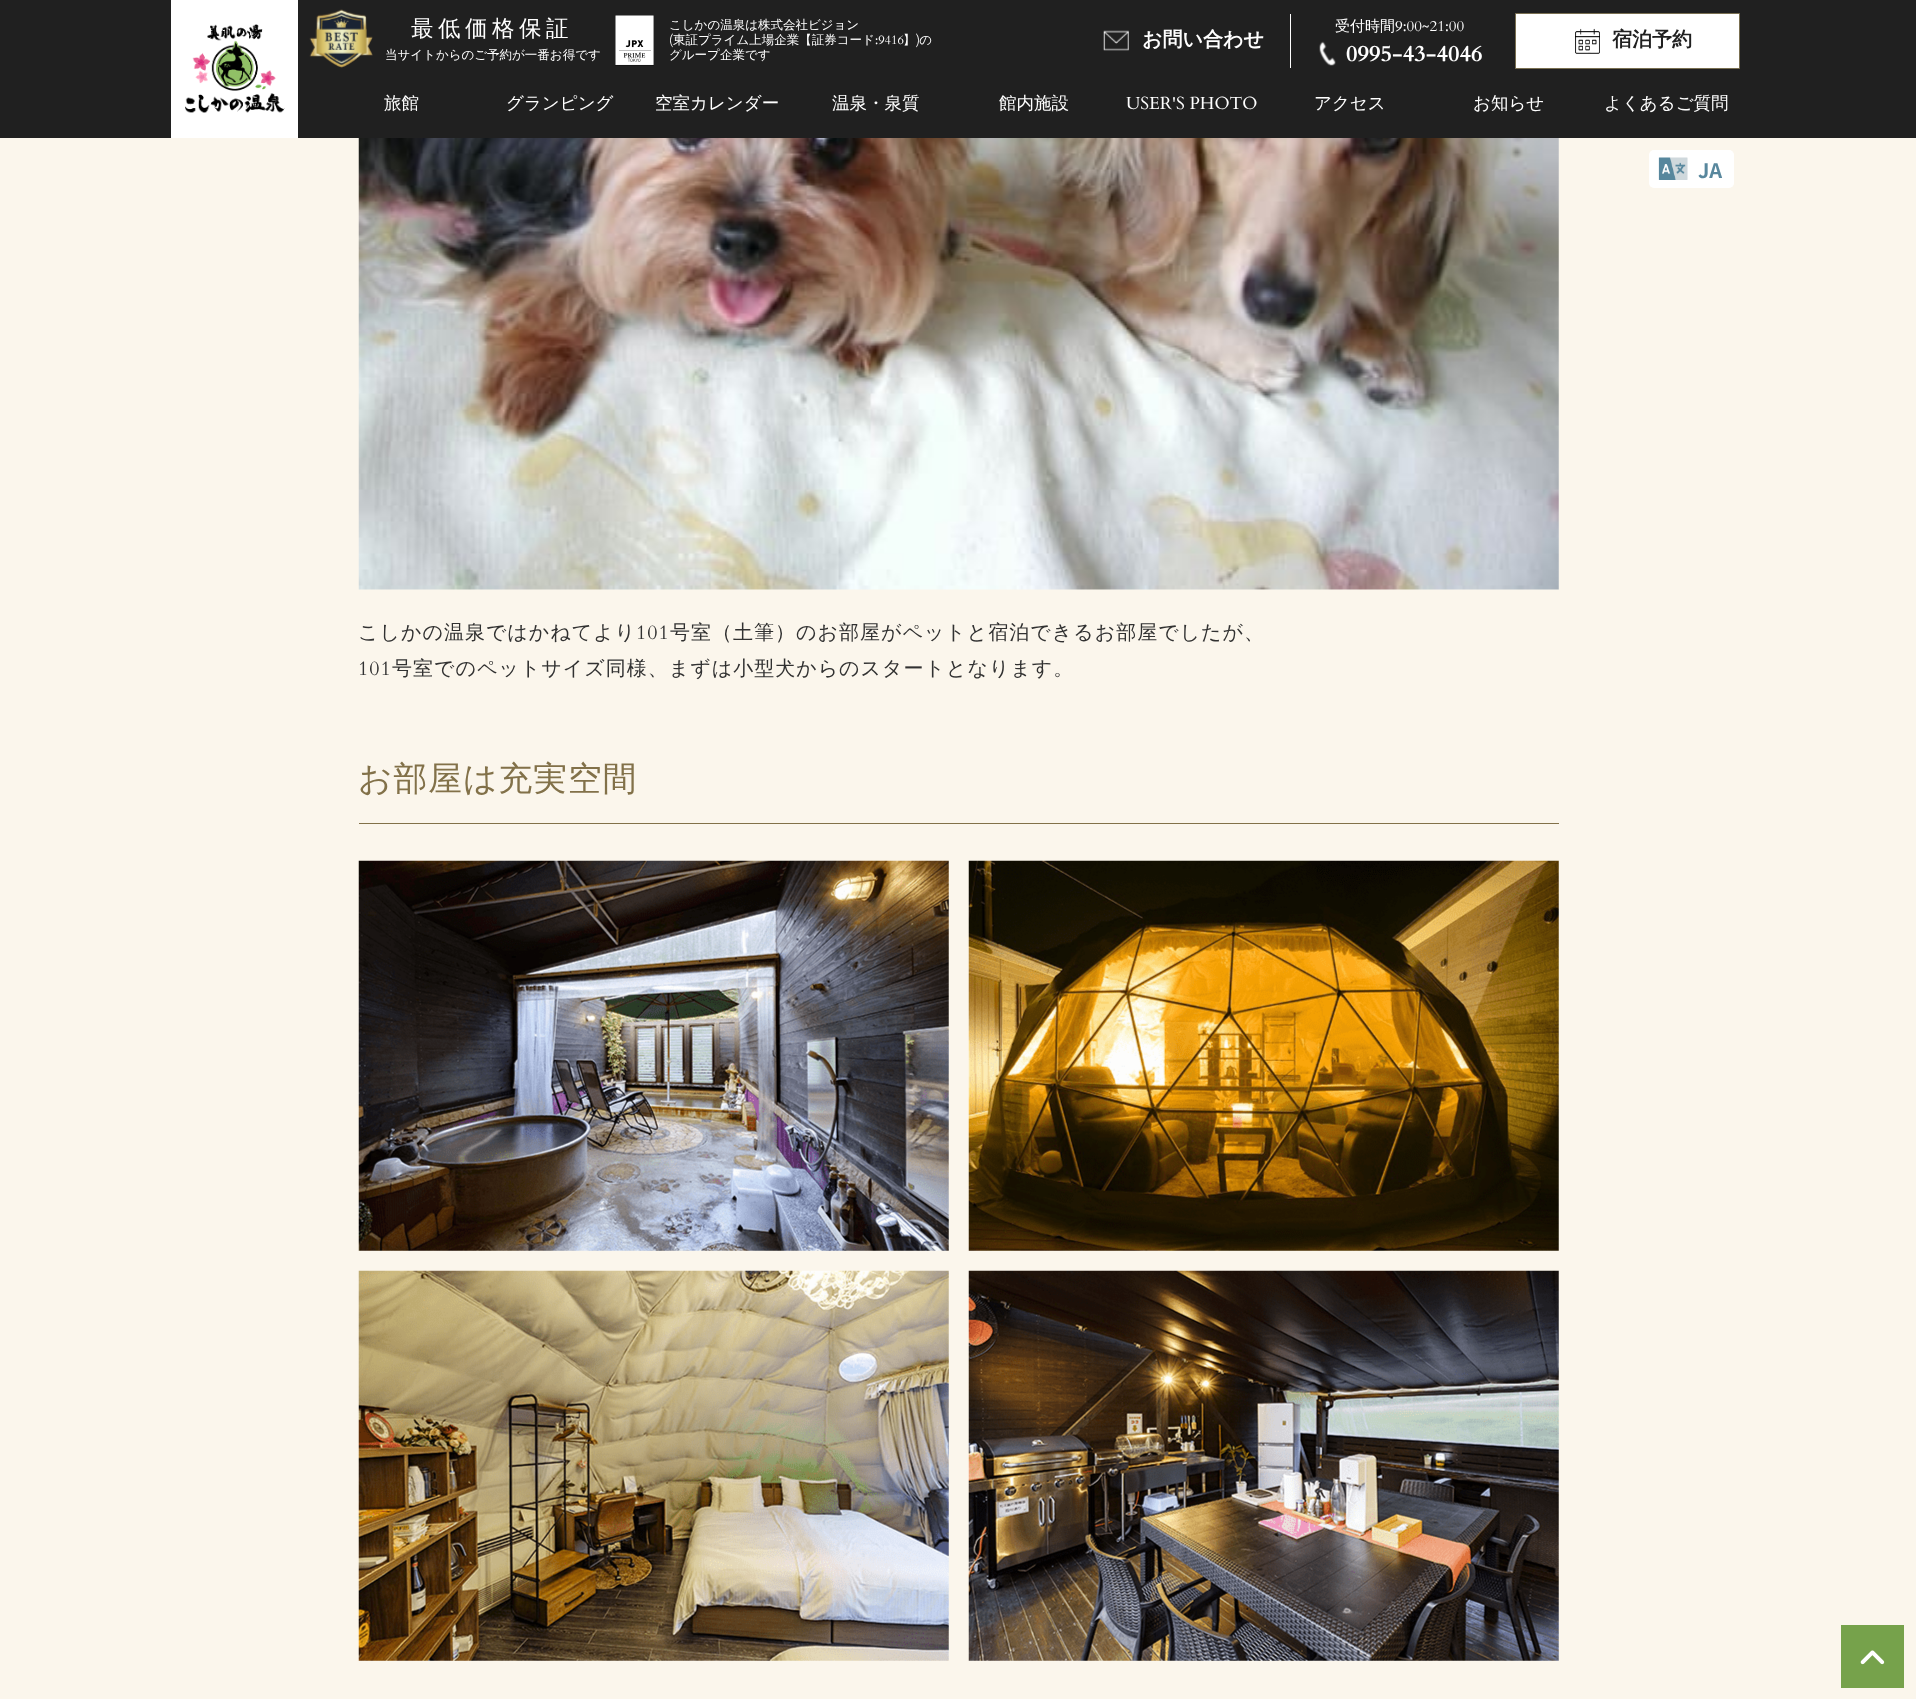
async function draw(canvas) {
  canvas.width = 1916
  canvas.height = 1699
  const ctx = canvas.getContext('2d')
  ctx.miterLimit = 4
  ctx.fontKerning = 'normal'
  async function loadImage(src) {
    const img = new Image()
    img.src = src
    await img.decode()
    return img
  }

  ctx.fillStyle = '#fbf6ec'
  ctx.fillRect(0, 0, 1916, 1699)
  ctx.fillStyle = '#202020'
  ctx.fillRect(0, 0, 1916, 138)
  ctx.fillStyle = '#fff'
  ctx.fillRect(171, 0, 127, 138)
  ctx.drawImage(await loadImage('image0.png'), 185, 24, 100, 89)
  ctx.drawImage(await loadImage('image1.png'), 309, 9, 64, 59)
  ctx.letterSpacing = '4.5px'
  ctx.font = '500 22.5px WenQuanYi Zen Hei'
  ctx.fillText('最低価格保証', 411, 36)
  ctx.letterSpacing = '0px'
  ctx.font = '500 12.5px WenQuanYi Zen Hei'
  ctx.fillText('当サイトからのご予約が一番お得です', 385, 59)
  ctx.drawImage(await loadImage('image2.png'), 615, 15, 39, 51)
  ctx.fillText('こしかの温泉は株式会社ビジョン', 669, 29)
  ctx.font = '12.5px Cardo'
  ctx.fillText('(', 669, 44)
  ctx.font = '500 12.5px WenQuanYi Zen Hei'
  ctx.fillText('東証プライム上場企業【証券コード', 673, 44)
  ctx.fillText('】 の', 903, 44)
  ctx.font = '12.5px Cardo'
  ctx.fillText(':9416', 875, 44)
  ctx.fillText(')', 916, 44)
  ctx.font = '500 12.5px WenQuanYi Zen Hei'
  ctx.fillText('グループ企業です', 669, 59)
  ctx.drawImage(await loadImage('image3.png'), 1103, 30, 26, 21)
  ctx.font = 'bold 20px WenQuanYi Zen Hei'
  ctx.fillText('お問い合わせ', 1142, 46)
  ctx.fillRect(1290, 14, 1, 54)
  ctx.font = '500 15px WenQuanYi Zen Hei'
  ctx.fillText('受付時間', 1335, 31)
  ctx.font = '15px Cardo'
  ctx.fillText('9:00~21:00', 1395, 31)
  ctx.drawImage(await loadImage('image4.png'), 1319, 41, 17, 25)
  ctx.font = 'bold 22.5px Cardo'
  ctx.fillText('0995-43-4046', 1346, 61)
  ctx.beginPath()
  ctx.rect(1515.5, 13.5, 224, 55)
  ctx.fill()
  ctx.strokeStyle = '#796f51'
  ctx.stroke()
  ctx.drawImage(await loadImage('image5.png'), 1575, 28, 25, 26)
  ctx.font = 'bold 20px WenQuanYi Zen Hei'
  ctx.fillStyle = '#202020'
  ctx.fillText('宿泊予約', 1612, 46)
  ctx.font = '500 17.5px WenQuanYi Zen Hei'
  ctx.fillStyle = '#fff'
  ctx.fillText('旅館', 384, 109)
  ctx.fillText('グランピング', 506, 109)
  ctx.fillText('空室カレンダー', 655, 109)
  ctx.fillText('温泉・泉質', 832, 109)
  ctx.fillText('館内施設', 999, 109)
  ctx.font = '17.5px Cardo'
  ctx.fillText('USER\'S PHOTO', 1126, 109)
  ctx.font = '500 17.5px WenQuanYi Zen Hei'
  ctx.fillText('アクセス', 1314, 109)
  ctx.fillText('お知らせ', 1473, 109)
  ctx.fillText('よくあるご質問', 1604, 109)
  ctx.beginPath()
  ctx.roundRect(1649, 150, 85, 38, 5)
  ctx.fill()
  ctx.drawImage(await loadImage('image6.png'), 1658, 157, 30, 23)
  ctx.font = 'bold 20px Noto Sans JP'
  ctx.fillStyle = '#58879d'
  ctx.fillText('JA', 1698, 178)
  ctx.drawImage(await loadImage('image7.png'), 358, 138, 1201, 452)
  ctx.letterSpacing = '1px'
  ctx.font = '500 20px WenQuanYi Zen Hei'
  ctx.fillStyle = '#313131'
  ctx.fillText('こしかの温泉ではかねてより', 358, 639)
  ctx.font = '20px Cardo'
  ctx.fillText('101', 636, 639)
  ctx.font = '500 20px WenQuanYi Zen Hei'
  ctx.fillText('号室（土筆）のお部屋がペットと宿泊できるお部屋でしたが、', 670, 639)
  ctx.font = '20px Cardo'
  ctx.fillText('101', 358, 675)
  ctx.font = '500 20px WenQuanYi Zen Hei'
  ctx.fillText('号室でのペットサイズ同様、まずは小型犬からのスタートとなります。', 392, 675)
  ctx.fillStyle = '#827149'
  ctx.fillRect(359, 823, 1200, 1)
  ctx.font = '500 33.75px WenQuanYi Zen Hei'
  ctx.fillText('お部屋は充実空間', 358, 790)
  ctx.drawImage(await loadImage('image8.png'), 358, 860, 1201, 801)
  ctx.fillStyle = '#76a24b'
  ctx.fillRect(1841, 1625, 63, 63)
  ctx.drawImage(await loadImage('image9.png'), 1860, 1650, 25, 15)
}

draw(document.querySelector('canvas'))
